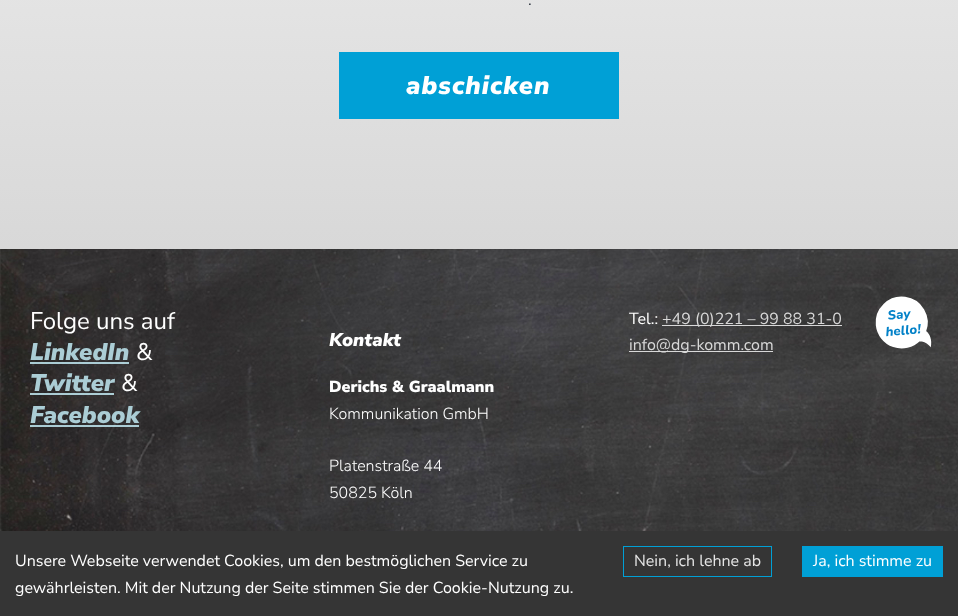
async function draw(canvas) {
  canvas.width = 958
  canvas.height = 616
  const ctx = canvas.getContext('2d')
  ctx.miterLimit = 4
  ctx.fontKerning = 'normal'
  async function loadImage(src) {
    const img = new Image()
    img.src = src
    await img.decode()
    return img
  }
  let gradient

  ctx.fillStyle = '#fff'
  ctx.fillRect(0, 0, 958, 616)
  gradient = ctx.createLinearGradient(479, -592, 479, 249)
  gradient.addColorStop(0, '#fff')
  gradient.addColorStop(1, '#d8d8d8')
  ctx.fillStyle = gradient
  ctx.fillRect(0, 0, 958, 249)
  ctx.font = '200 16px Nunito Sans'
  ctx.fillStyle = '#373f49'
  ctx.fillText('.', 528, 5)
  ctx.fillStyle = '#00a0d6'
  ctx.fillRect(339, 52, 280, 67)
  ctx.letterSpacing = '1px'
  ctx.font = 'italic 200 25.5px Nunito Sans'
  ctx.fillStyle = '#fff'
  ctx.fillText('abschicken', 406, 94)
  ctx.drawImage(await loadImage('image0.png'), 0, 249, 958, 282)
  ctx.letterSpacing = '0px'
  ctx.font = '200 24px Nunito Sans'
  ctx.fillText('Folge uns auf', 30, 329)
  ctx.font = 'italic 200 24px Nunito Sans'
  ctx.fillStyle = '#abcdd5'
  ctx.fillText('LinkedIn', 30, 360)
  ctx.fillStyle = '#caf5ffcc'
  ctx.fillRect(30, 362, 99, 2)
  ctx.font = '200 24px Nunito Sans'
  ctx.fillStyle = '#fff'
  ctx.fillText('&', 136, 360)
  ctx.font = 'italic 200 24px Nunito Sans'
  ctx.fillStyle = '#abcdd5'
  ctx.fillText('Twitter', 30, 391)
  ctx.fillStyle = '#caf5ffcc'
  ctx.fillRect(30, 393, 84, 2)
  ctx.font = '200 24px Nunito Sans'
  ctx.fillStyle = '#fff'
  ctx.fillText('&', 121, 391)
  ctx.font = 'italic 200 24px Nunito Sans'
  ctx.fillStyle = '#abcdd5'
  ctx.fillText('Facebook', 30, 423)
  ctx.fillStyle = '#caf5ffcc'
  ctx.fillRect(30, 425, 109, 2)
  ctx.font = 'italic 200 18.5px Nunito Sans'
  ctx.fillStyle = '#fff'
  ctx.fillText('Kontakt', 329, 346)
  ctx.font = '200 16px "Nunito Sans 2"'
  ctx.fillText('Derichs & Graalmann', 329, 392)
  ctx.font = '200 16px "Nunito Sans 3"'
  ctx.fillText('Kommunikation GmbH', 329, 419)
  ctx.fillText('Platenstraße 44', 329, 471)
  ctx.fillText('50825 Köln', 329, 498)
  ctx.font = '200 16px Nunito Sans'
  ctx.fillText('Tel.:', 629, 324)
  ctx.fillStyle = '#ffffffcc'
  ctx.fillRect(662, 325, 180, 1)
  ctx.fillStyle = '#d8d8d8'
  ctx.fillText('+49 (0)221 – 99 88 31-0', 662, 324)
  ctx.drawImage(await loadImage('image1.png'), 875, 296, 57, 53)
  ctx.fillStyle = '#ffffffcc'
  ctx.fillRect(629, 351, 144, 1)
  ctx.fillStyle = '#d8d8d8'
  ctx.fillText('info@dg-komm.com', 629, 350)
  ctx.fillStyle = '#353535'
  ctx.fillRect(0, 531, 958, 85)
  ctx.fillStyle = '#fff'
  ctx.fillText('Unsere Webseite verwendet Cookies, um den bestmöglichen Service zu', 15, 566)
  ctx.fillText('gewährleisten. Mit der Nutzung der Seite stimmen Sie der Cookie-Nutzung zu.', 15, 593)
  ctx.strokeStyle = '#00a0d6'
  ctx.strokeRect(623.5, 546.5, 148, 30)
  ctx.fillStyle = '#e5e5e5'
  ctx.fillText('Nein, ich lehne ab', 634, 566)
  ctx.fillStyle = '#00a0d6'
  ctx.fillRect(802, 546, 141, 31)
  ctx.fillStyle = '#fff'
  ctx.fillText('Ja, ich stimme zu', 813, 566)
}

draw(document.querySelector('canvas'))
